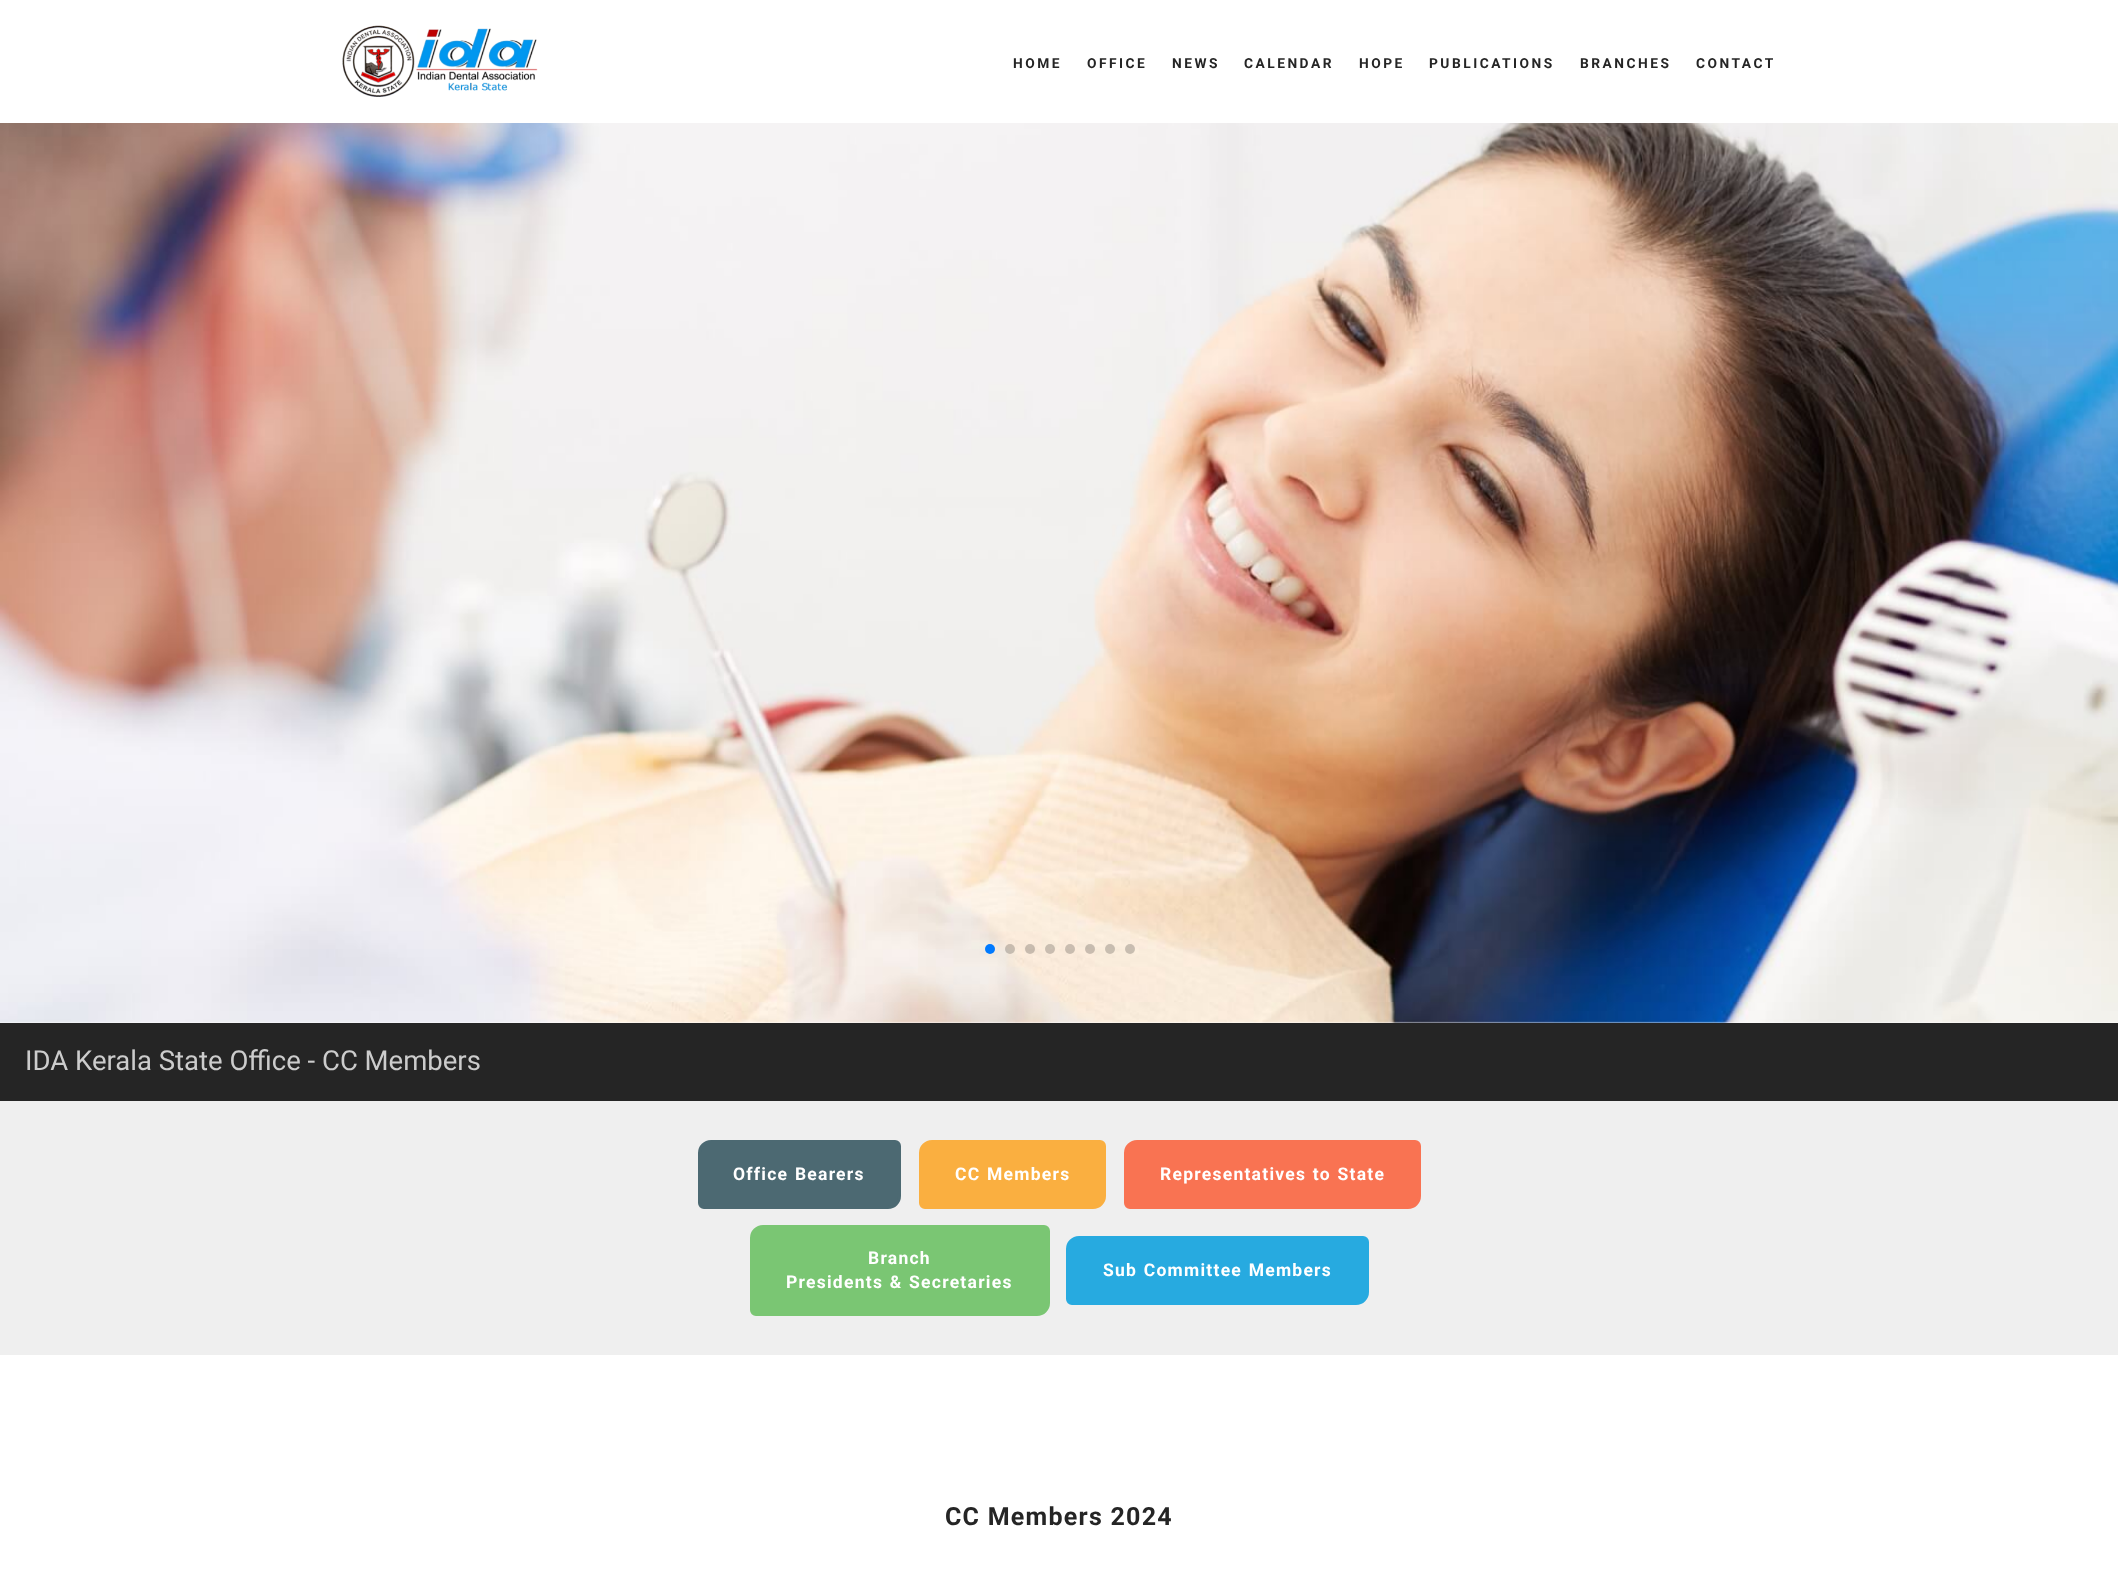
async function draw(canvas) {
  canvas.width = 2118
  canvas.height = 1573
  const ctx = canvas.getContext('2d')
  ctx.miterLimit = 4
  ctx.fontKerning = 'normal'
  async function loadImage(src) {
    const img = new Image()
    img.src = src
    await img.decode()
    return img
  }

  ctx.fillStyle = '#fff'
  ctx.fillRect(0, 0, 2118, 1573)
  ctx.drawImage(await loadImage('image0.png'), 342, 25, 196, 72)
  ctx.letterSpacing = '2.5px'
  ctx.font = 'bold 13.75px Roboto'
  ctx.fillStyle = '#252525'
  ctx.fillText('HOME', 1013, 68)
  ctx.fillText('OFFICE', 1087, 68)
  ctx.fillText('NEWS', 1172, 68)
  ctx.fillText('CALENDAR', 1244, 68)
  ctx.fillText('HOPE', 1359, 68)
  ctx.fillText('PUBLICATIONS', 1429, 68)
  ctx.fillText('BRANCHES', 1580, 68)
  ctx.fillText('CONTACT', 1696, 68)
  ctx.drawImage(await loadImage('image1.png'), 0, 123, 2118, 900)
  ctx.fillStyle = '#007aff'
  ctx.beginPath()
  ctx.arc(990, 949, 5, 0, 2 * Math.PI)
  ctx.fill()
  ctx.fillStyle = '#00000033'
  ctx.beginPath()
  ctx.arc(1010, 949, 5, 0, 2 * Math.PI)
  ctx.fill()
  ctx.beginPath()
  ctx.arc(1030, 949, 5, 0, 2 * Math.PI)
  ctx.fill()
  ctx.beginPath()
  ctx.arc(1050, 949, 5, 0, 2 * Math.PI)
  ctx.fill()
  ctx.beginPath()
  ctx.arc(1070, 949, 5, 0, 2 * Math.PI)
  ctx.fill()
  ctx.beginPath()
  ctx.arc(1090, 949, 5, 0, 2 * Math.PI)
  ctx.fill()
  ctx.beginPath()
  ctx.arc(1110, 949, 5, 0, 2 * Math.PI)
  ctx.fill()
  ctx.beginPath()
  ctx.arc(1130, 949, 5, 0, 2 * Math.PI)
  ctx.fill()
  ctx.fillStyle = '#252525'
  ctx.fillRect(0, 1023, 2118, 78)
  ctx.letterSpacing = '0px'
  ctx.font = '27.5px Roboto'
  ctx.fillStyle = '#ccc'
  ctx.fillText('IDA Kerala State Office - CC Members', 25, 1070)
  ctx.fillStyle = '#efefef'
  ctx.fillRect(0, 1101, 2118, 254)
  ctx.fillStyle = '#4c6972'
  ctx.beginPath()
  ctx.roundRect(699.5, 1141.5, 200, 66, [11.5, 4.5, 11.5, 4.5])
  ctx.fill()
  ctx.strokeStyle = '#4c6972'
  ctx.lineWidth = 3
  ctx.stroke()
  ctx.letterSpacing = '1.25px'
  ctx.wordSpacing = '1px'
  ctx.font = 'bold 17.5px Roboto'
  ctx.fillStyle = '#fff'
  ctx.fillText('Office Bearers', 733, 1180)
  ctx.fillStyle = '#faaf40'
  ctx.beginPath()
  ctx.roundRect(920.5, 1141.5, 184, 66, [11.5, 4.5, 11.5, 4.5])
  ctx.fill()
  ctx.strokeStyle = '#faaf40'
  ctx.stroke()
  ctx.fillStyle = '#fff'
  ctx.fillText('CC Members', 955, 1180)
  ctx.fillStyle = '#f97352'
  ctx.beginPath()
  ctx.roundRect(1125.5, 1141.5, 294, 66, [11.5, 4.5, 11.5, 4.5])
  ctx.fill()
  ctx.strokeStyle = '#f97352'
  ctx.stroke()
  ctx.fillStyle = '#fff'
  ctx.fillText('Representatives to State', 1160, 1180)
  ctx.fillStyle = '#7ac673'
  ctx.beginPath()
  ctx.roundRect(751.5, 1226.5, 297, 88, [11.5, 4.5, 11.5, 4.5])
  ctx.fill()
  ctx.strokeStyle = '#7ac673'
  ctx.stroke()
  ctx.wordSpacing = '0px'
  ctx.fillStyle = '#fff'
  ctx.fillText('Branch', 868, 1264)
  ctx.wordSpacing = '1px'
  ctx.fillText('Presidents & Secretaries', 786, 1288)
  ctx.fillStyle = '#27aae0'
  ctx.beginPath()
  ctx.roundRect(1067.5, 1237.5, 300, 66, [11.5, 4.5, 11.5, 4.5])
  ctx.fill()
  ctx.strokeStyle = '#27aae0'
  ctx.stroke()
  ctx.fillStyle = '#fff'
  ctx.fillText('Sub Committee Members', 1103, 1276)
  ctx.wordSpacing = '0px'
  ctx.font = 'bold 25px Roboto'
  ctx.fillStyle = '#252525'
  ctx.fillText('CC Members 2024', 945, 1525)
}

draw(document.querySelector('canvas'))
